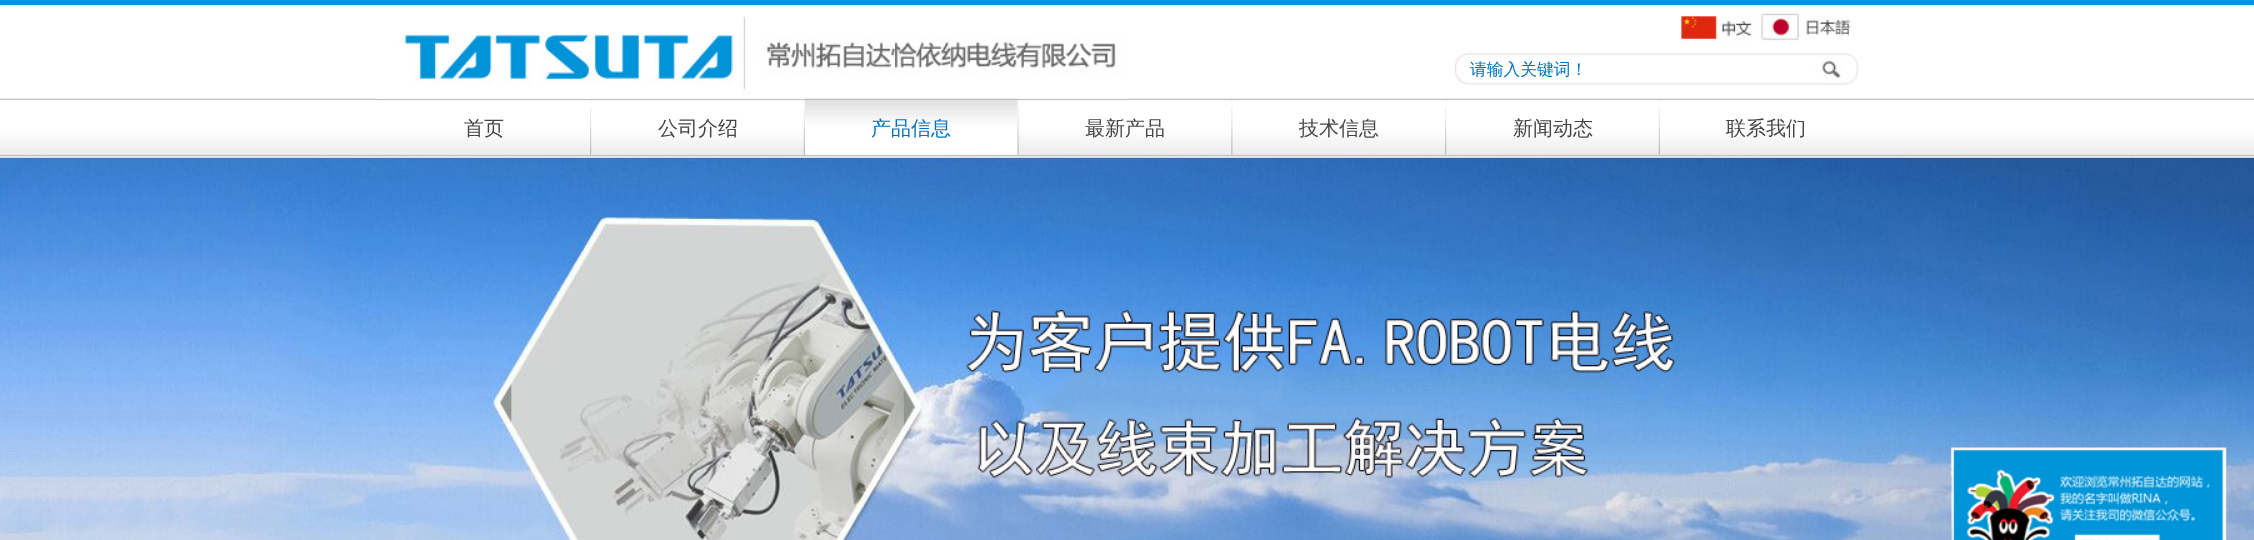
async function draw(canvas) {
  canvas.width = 2254
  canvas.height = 540
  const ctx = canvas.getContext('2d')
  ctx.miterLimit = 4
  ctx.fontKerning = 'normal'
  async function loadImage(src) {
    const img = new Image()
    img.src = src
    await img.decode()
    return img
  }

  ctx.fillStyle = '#fff'
  ctx.fillRect(0, 0, 2254, 540)
  ctx.fillStyle = '#0096d5'
  ctx.fillRect(0, 0, 2254, 5)
  ctx.drawImage(await loadImage('image3.png'), 0, 98, 2254, 59)
  ctx.drawImage(await loadImage('image0.png'), 377, 16, 751, 83)
  ctx.drawImage(await loadImage('image1.png'), 1680, 13, 171, 32)
  ctx.drawImage(await loadImage('image2.png'), 1455, 52, 404, 33)
  ctx.font = '500 16.75px WenQuanYi Zen Hei'
  ctx.fillStyle = '#0072bc'
  ctx.fillText('请输入关键词！', 1470, 75)
  ctx.font = '500 20px WenQuanYi Zen Hei'
  ctx.fillStyle = '#454545'
  ctx.fillText('首页', 464, 135)
  ctx.drawImage(await loadImage('image4.png'), 590, 98, 2, 58)
  ctx.fillText('公司介绍', 658, 135)
  ctx.drawImage(await loadImage('image5.png'), 803, 98, 2, 58)
  ctx.drawImage(await loadImage('image6.png'), 805, 98, 213, 57)
  ctx.fillStyle = '#0072bc'
  ctx.fillText('产品信息', 871, 135)
  ctx.drawImage(await loadImage('image7.png'), 1017, 98, 2, 58)
  ctx.fillStyle = '#454545'
  ctx.fillText('最新产品', 1085, 135)
  ctx.drawImage(await loadImage('image8.png'), 1231, 98, 2, 58)
  ctx.fillText('技术信息', 1299, 135)
  ctx.drawImage(await loadImage('image9.png'), 1445, 98, 2, 58)
  ctx.fillText('新闻动态', 1513, 135)
  ctx.drawImage(await loadImage('image10.png'), 1658, 98, 2, 58)
  ctx.fillText('联系我们', 1726, 135)
  ctx.drawImage(await loadImage('image11.png'), 0, 157, 2254, 383)
  ctx.drawImage(await loadImage('image12.png'), 1950, 447, 277, 93)
}

draw(document.querySelector('canvas'))
